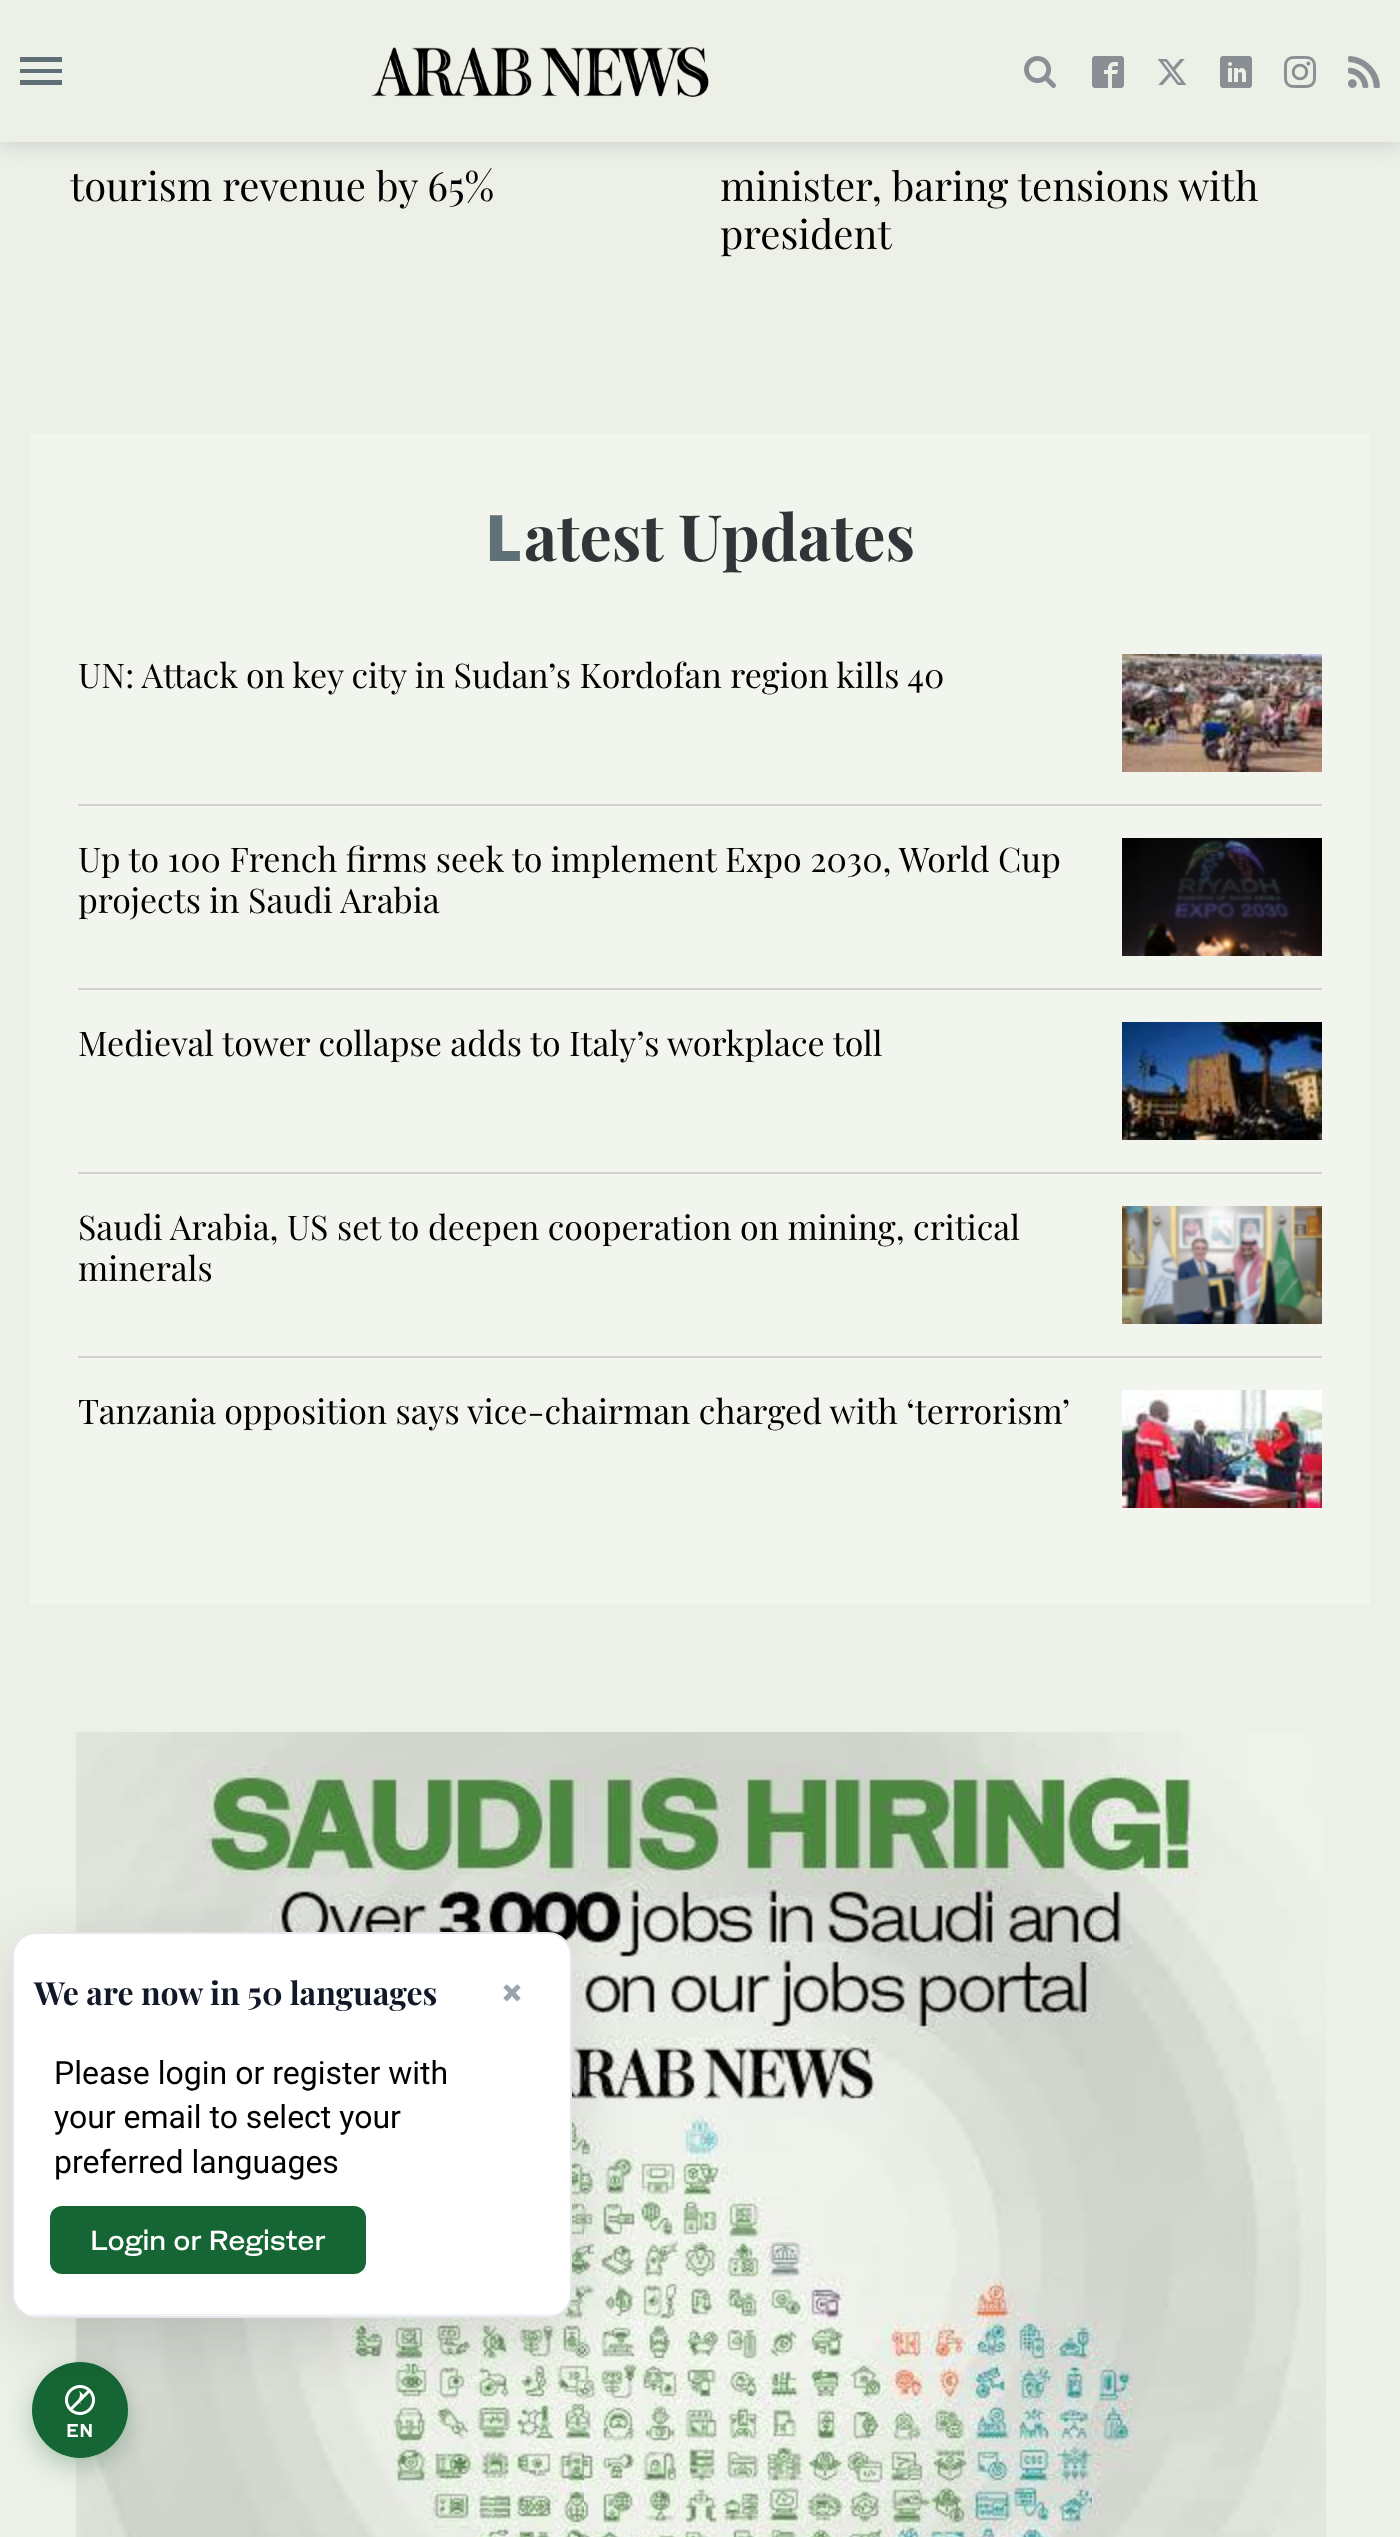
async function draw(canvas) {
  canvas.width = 1400
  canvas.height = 2537
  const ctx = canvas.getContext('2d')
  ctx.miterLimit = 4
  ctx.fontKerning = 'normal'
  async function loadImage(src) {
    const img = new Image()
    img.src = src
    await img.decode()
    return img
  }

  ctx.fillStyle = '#ecf0e7'
  ctx.fillRect(0, 0, 1400, 2537)
  ctx.fillStyle = '#ccc'
  ctx.filter = 'blur(10px)'
  ctx.beginPath()
  ctx.rect(0, 2, 1400, 142)
  ctx.fill()
  ctx.filter = 'none'
  ctx.fillStyle = '#ecf0e7'
  ctx.fillRect(0, 0, 1400, 142)
  ctx.fillStyle = '#5f7176'
  ctx.beginPath()
  ctx.moveTo(20, 85)
  ctx.lineTo(62, 85)
  ctx.lineTo(62, 80)
  ctx.lineTo(20, 80)
  ctx.closePath()
  ctx.moveTo(20, 73)
  ctx.lineTo(62, 73)
  ctx.lineTo(62, 69)
  ctx.lineTo(20, 69)
  ctx.closePath()
  ctx.moveTo(20, 57)
  ctx.lineTo(20, 62)
  ctx.lineTo(62, 62)
  ctx.lineTo(62, 57)
  ctx.closePath()
  ctx.fill()
  ctx.drawImage(await loadImage('image0.png'), 371, 46, 338, 52)
  ctx.drawImage(await loadImage('image1.png'), 1024, 56, 32, 32)
  ctx.drawImage(await loadImage('image2.png'), 1092, 56, 32, 32)
  ctx.drawImage(await loadImage('image3.png'), 1157, 59, 30, 26)
  ctx.drawImage(await loadImage('image4.png'), 1220, 56, 32, 32)
  ctx.drawImage(await loadImage('image5.png'), 1284, 56, 32, 32)
  ctx.drawImage(await loadImage('image6.png'), 1348, 56, 32, 32)
  ctx.font = '40px Playfair Display'
  ctx.fillStyle = '#000'
  ctx.fillText('tourism revenue by 65%', 70, 201)
  ctx.fillText('minister, baring tensions with', 720, 201)
  ctx.fillText('president', 720, 249)
  ctx.fillStyle = '#f1f5ee'
  ctx.fillRect(30, 434, 1340, 1170)
  ctx.font = '900 64px Noto Sans'
  ctx.fillStyle = '#5f7176'
  ctx.fillText('L', 485, 561)
  ctx.font = 'bold 64px Playfair Display'
  ctx.fillStyle = '#303638'
  ctx.fillText('atest Updates', 524, 561)
  ctx.fillStyle = '#d1d1d1'
  ctx.fillRect(78, 804, 1244, 2)
  ctx.font = '34px Playfair Display'
  ctx.fillStyle = '#000'
  ctx.fillText('UN: Attack on key city in Sudan’s Kordofan region kills 40', 78, 688)
  ctx.drawImage(await loadImage('image7.png'), 1122, 654, 200, 118)
  ctx.fillStyle = '#d1d1d1'
  ctx.fillRect(78, 988, 1244, 2)
  ctx.fillStyle = '#000'
  ctx.fillText('Up to 100 French firms seek to implement Expo 2030, World Cup', 78, 872)
  ctx.fillText('projects in Saudi Arabia', 78, 913)
  ctx.drawImage(await loadImage('image8.png'), 1122, 838, 200, 118)
  ctx.fillStyle = '#d1d1d1'
  ctx.fillRect(78, 1172, 1244, 2)
  ctx.fillStyle = '#000'
  ctx.fillText('Medieval tower collapse adds to Italy’s workplace toll', 78, 1056)
  ctx.drawImage(await loadImage('image9.png'), 1122, 1022, 200, 118)
  ctx.fillStyle = '#d1d1d1'
  ctx.fillRect(78, 1356, 1244, 2)
  ctx.fillStyle = '#000'
  ctx.fillText('Saudi Arabia, US set to deepen cooperation on mining, critical', 78, 1240)
  ctx.fillText('minerals', 78, 1281)
  ctx.drawImage(await loadImage('image10.png'), 1122, 1206, 200, 118)
  ctx.fillText('Tanzania opposition says vice-chairman charged with ‘terrorism’', 78, 1424)
  ctx.drawImage(await loadImage('image11.png'), 1122, 1390, 200, 118)
  ctx.drawImage(await loadImage('image12.png'), 75, 1732, 1251, 805)
  ctx.fillStyle = '#1665344d'
  ctx.filter = 'blur(12px)'
  ctx.beginPath()
  ctx.roundRect(32, 2370, 96, 96, 48)
  ctx.fill()
  ctx.filter = 'none'
  ctx.fillStyle = '#166534'
  ctx.beginPath()
  ctx.arc(80, 2410, 48, 0, 2 * Math.PI)
  ctx.fill()
  ctx.drawImage(await loadImage('image13.png'), 65, 2385, 30, 30)
  ctx.fillStyle = '#0000001f'
  ctx.filter = 'blur(32px)'
  ctx.beginPath()
  ctx.roundRect(12, 1948, 560, 386, 24)
  ctx.fill()
  ctx.filter = 'none'
  ctx.fillStyle = '#fff'
  ctx.beginPath()
  ctx.roundRect(13, 1933, 558, 384, 23)
  ctx.fill()
  ctx.strokeStyle = '#e5e7eb'
  ctx.lineWidth = 2
  ctx.stroke()
  ctx.save()
  ctx.beginPath()
  ctx.roundRect(14, 1934, 556, 382, 22)
  ctx.clip()
  ctx.fillStyle = '#f3f4f6'
  ctx.fillRect(27, 2314, 530, 2)
  ctx.restore()
  ctx.font = 'bold 32px Playfair Display'
  ctx.fillStyle = '#111827'
  ctx.fillText('We are now in 50 languages', 34, 2005)
  ctx.font = 'bold 40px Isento'
  ctx.fillStyle = '#9ca3af'
  ctx.fillText('×', 501, 2007)
  ctx.font = '32px Roboto'
  ctx.fillStyle = '#000'
  ctx.fillText('Please login or register with', 54, 2084)
  ctx.fillText('your email to select your', 54, 2128)
  ctx.fillText('preferred languages', 54, 2173)
  ctx.fillStyle = '#166534'
  ctx.beginPath()
  ctx.roundRect(50, 2206, 316, 68, 12)
  ctx.fill()
  ctx.font = '500 28px Isento'
  ctx.fillStyle = '#fff'
  ctx.fillText('Login or Register', 90, 2250)
  ctx.letterSpacing = '1px'
  ctx.font = 'bold 18px Isento'
  ctx.fillText('EN', 66, 2437)
}

draw(document.querySelector('canvas'))
